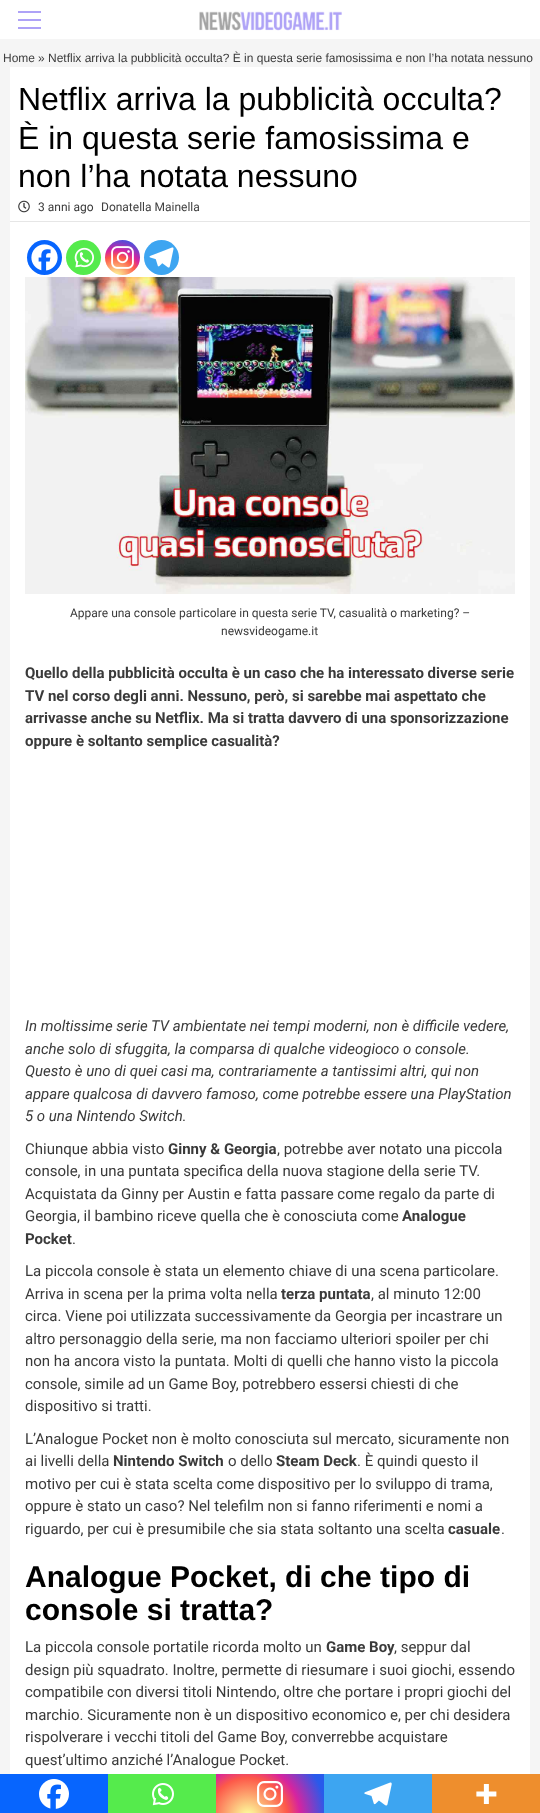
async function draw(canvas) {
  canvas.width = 540
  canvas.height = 1813
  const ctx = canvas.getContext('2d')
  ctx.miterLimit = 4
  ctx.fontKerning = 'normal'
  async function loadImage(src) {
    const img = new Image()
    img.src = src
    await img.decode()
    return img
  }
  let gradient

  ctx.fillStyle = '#f5f5f5'
  ctx.fillRect(0, 0, 540, 1813)
  ctx.fillStyle = '#fff'
  ctx.fillRect(0, 0, 540, 39)
  ctx.drawImage(await loadImage('image0.png'), 199, 11, 143, 20)
  ctx.fillStyle = '#aea2f7'
  ctx.fillRect(18, 19, 23, 2)
  ctx.fillRect(18, 11, 23, 2)
  ctx.fillRect(18, 27, 23, 2)
  ctx.font = '12px Liberation Sans'
  ctx.fillStyle = '#404040'
  ctx.fillText('Home', 3, 62)
  ctx.fillStyle = '#3a3a3a'
  ctx.fillText('» Netflix arriva la pubblicità occulta? È in questa serie famosissima e non l’ha notata nessuno', 38, 62)
  ctx.fillStyle = '#fff'
  ctx.fillRect(10, 67, 520, 1707)
  ctx.fillStyle = '#e6e6e6'
  ctx.fillRect(10, 221, 520, 1)
  ctx.font = '32px Liberation Sans'
  ctx.fillStyle = '#000'
  ctx.fillText('Netflix arriva la pubblicità occulta?', 18, 110)
  ctx.fillText('È in questa serie famosissima e', 18, 149)
  ctx.fillText('non l’ha notata nessuno', 18, 187)
  ctx.drawImage(await loadImage('image1.png'), 18, 200, 12, 13)
  ctx.font = '12px Roboto'
  ctx.fillStyle = '#3a3a3a'
  ctx.fillText('3 anni ago', 38, 211)
  ctx.fillStyle = '#404040'
  ctx.fillText('Donatella Mainella', 101, 211)
  ctx.fillStyle = '#0765fe'
  ctx.beginPath()
  ctx.arc(44.5, 257.5, 17.5, 0, 2 * Math.PI)
  ctx.fill()
  ctx.drawImage(await loadImage('image2.png'), 31, 244, 27, 27)
  ctx.fillStyle = '#55eb4c'
  ctx.beginPath()
  ctx.arc(83.5, 257.5, 17.5, 0, 2 * Math.PI)
  ctx.fill()
  ctx.drawImage(await loadImage('image3.png'), 74, 247, 20, 21)
  gradient = ctx.createRadialGradient(116, 277, 0, 116, 277, 45)
  gradient.addColorStop(0, '#fdf497')
  gradient.addColorStop(0.05, '#fdf497')
  gradient.addColorStop(0.45, '#fd5949')
  gradient.addColorStop(0.6, '#d6249f')
  gradient.addColorStop(0.9, '#285aeb')
  ctx.fillStyle = gradient
  ctx.beginPath()
  ctx.arc(122.5, 257.5, 17.5, 0, 2 * Math.PI)
  ctx.fill()
  ctx.drawImage(await loadImage('image4.png'), 111, 246, 23, 23)
  ctx.fillStyle = '#3da5f1'
  ctx.beginPath()
  ctx.arc(161.5, 257.5, 17.5, 0, 2 * Math.PI)
  ctx.fill()
  ctx.drawImage(await loadImage('image5.png'), 149, 247, 25, 21)
  ctx.drawImage(await loadImage('image6.png'), 25, 277, 490, 317)
  ctx.fillStyle = '#3a3a3a'
  ctx.fillText('Appare una console particolare in questa serie TV, casualità o marketing? –', 70, 617)
  ctx.fillText('newsvideogame.it', 221, 635)
  ctx.font = 'bold 15px Roboto'
  ctx.fillText('Quello della pubblicità occulta è un caso che ha interessato diverse serie', 25, 678)
  ctx.fillText('TV nel corso degli anni. Nessuno, però, si sarebbe mai aspettato che', 25, 701)
  ctx.fillText('arrivasse anche su Netflix. Ma si tratta davvero di una sponsorizzazione', 25, 723)
  ctx.fillText('oppure è soltanto semplice casualità?', 25, 746)
  ctx.font = 'italic 15px Roboto'
  ctx.fillText('In moltissime serie TV ambientate nei tempi moderni, non è difficile vedere,', 25, 1031)
  ctx.fillText('anche solo di sfuggita, la comparsa di qualche videogioco o console.', 25, 1054)
  ctx.fillText('Questo è uno di quei casi ma, contrariamente a tantissimi altri, qui non', 25, 1076)
  ctx.fillText('appare qualcosa di davvero famoso, come potrebbe essere una PlayStation', 25, 1099)
  ctx.fillText('5 o una Nintendo Switch.', 25, 1121)
  ctx.font = '15px Roboto'
  ctx.fillText('Chiunque abbia visto', 25, 1154)
  ctx.font = 'bold 15px Roboto'
  ctx.fillText('Ginny & Georgia', 168, 1154)
  ctx.font = '15px Roboto'
  ctx.fillText(', potrebbe aver notato una piccola', 277, 1154)
  ctx.fillText('console, in una puntata specifica della nuova stagione della serie TV.', 25, 1176)
  ctx.fillText('Acquistata da Ginny per Austin e fatta passare come regalo da parte di', 25, 1199)
  ctx.fillText('Georgia, il bambino riceve quella che è conosciuta come', 25, 1221)
  ctx.font = 'bold 15px Roboto'
  ctx.fillText('Analogue', 402, 1221)
  ctx.fillText('Pocket', 25, 1244)
  ctx.font = '15px Roboto'
  ctx.fillText('.', 72, 1244)
  ctx.fillText('La piccola console è stata un elemento chiave di una scena particolare.', 25, 1276)
  ctx.fillText('Arriva in scena per la prima volta nella', 25, 1299)
  ctx.font = 'bold 15px Roboto'
  ctx.fillText('terza puntata', 281, 1299)
  ctx.font = '15px Roboto'
  ctx.fillText(', al minuto 12:00', 371, 1299)
  ctx.fillText('circa. Viene poi utilizzata successivamente da Georgia per incastrare un', 25, 1321)
  ctx.fillText('altro personaggio della serie, ma non facciamo ulteriori spoiler per chi', 25, 1344)
  ctx.fillText('non ha ancora visto la puntata. Molti di quelli che hanno visto la piccola', 25, 1366)
  ctx.fillText('console, simile ad un Game Boy, potrebbero essersi chiesti di che', 25, 1389)
  ctx.fillText('dispositivo si tratti.', 25, 1411)
  ctx.fillText('L’Analogue Pocket non è molto conosciuta sul mercato, sicuramente non', 25, 1444)
  ctx.fillText('ai livelli della', 25, 1466)
  ctx.font = 'bold 15px Roboto'
  ctx.fillText('Nintendo Switch', 113, 1466)
  ctx.font = '15px Roboto'
  ctx.fillText('o dello', 228, 1466)
  ctx.font = 'bold 15px Roboto'
  ctx.fillText('Steam Deck', 276, 1466)
  ctx.font = '15px Roboto'
  ctx.fillText('. È quindi questo il', 357, 1466)
  ctx.fillText('motivo per cui è stata scelta come dispositivo per lo sviluppo di trama,', 25, 1489)
  ctx.fillText('oppure è stato un caso? Nel telefilm non si fanno riferimenti e nomi a', 25, 1511)
  ctx.fillText('riguardo, per cui è presumibile che sia stata soltanto una scelta', 25, 1534)
  ctx.font = 'bold 15px Roboto'
  ctx.fillText('casuale', 448, 1534)
  ctx.font = '15px Roboto'
  ctx.fillText('.', 501, 1534)
  ctx.font = 'bold 30px Liberation Sans'
  ctx.fillStyle = '#000'
  ctx.fillText('Analogue Pocket, di che tipo di', 25, 1587)
  ctx.fillText('console si tratta?', 25, 1620)
  ctx.font = '15px Roboto'
  ctx.fillStyle = '#3a3a3a'
  ctx.fillText('La piccola console portatile ricorda molto un', 25, 1652)
  ctx.font = 'bold 15px Roboto'
  ctx.fillText('Game Boy', 326, 1652)
  ctx.font = '15px Roboto'
  ctx.fillText(', seppur dal', 394, 1652)
  ctx.fillText('design più squadrato. Inoltre, permette di riesumare i suoi giochi, essendo', 25, 1675)
  ctx.fillText('compatibile con diversi titoli Nintendo, oltre che portare i propri giochi del', 25, 1697)
  ctx.fillText('marchio. Sicuramente non è un dispositivo economico e, per chi desidera', 25, 1720)
  ctx.fillText('rispolverare i vecchi titoli del Game Boy, converrebbe acquistare', 25, 1742)
  ctx.fillText('quest’ultimo anziché l’Analogue Pocket.', 25, 1765)
  ctx.fillStyle = '#0765fe'
  ctx.fillRect(0, 1774, 108, 39)
  ctx.drawImage(await loadImage('image7.png'), 39, 1779, 30, 30)
  ctx.fillStyle = '#55eb4c'
  ctx.fillRect(108, 1774, 108, 39)
  ctx.drawImage(await loadImage('image8.png'), 152, 1783, 22, 23)
  gradient = ctx.createRadialGradient(248, 1817, 0, 248, 1817, 87)
  gradient.addColorStop(0, '#fdf497')
  gradient.addColorStop(0.05, '#fdf497')
  gradient.addColorStop(0.45, '#fd5949')
  gradient.addColorStop(0.6, '#d6249f')
  gradient.addColorStop(0.9, '#285aeb')
  ctx.fillStyle = gradient
  ctx.fillRect(216, 1774, 108, 39)
  ctx.drawImage(await loadImage('image9.png'), 257, 1781, 26, 26)
  ctx.fillStyle = '#3da5f1'
  ctx.fillRect(324, 1774, 108, 39)
  ctx.drawImage(await loadImage('image10.png'), 364, 1782, 28, 24)
  ctx.fillStyle = '#ee8e2d'
  ctx.fillRect(432, 1774, 108, 39)
  ctx.drawImage(await loadImage('image11.png'), 476, 1784, 21, 20)
}

draw(document.querySelector('canvas'))
